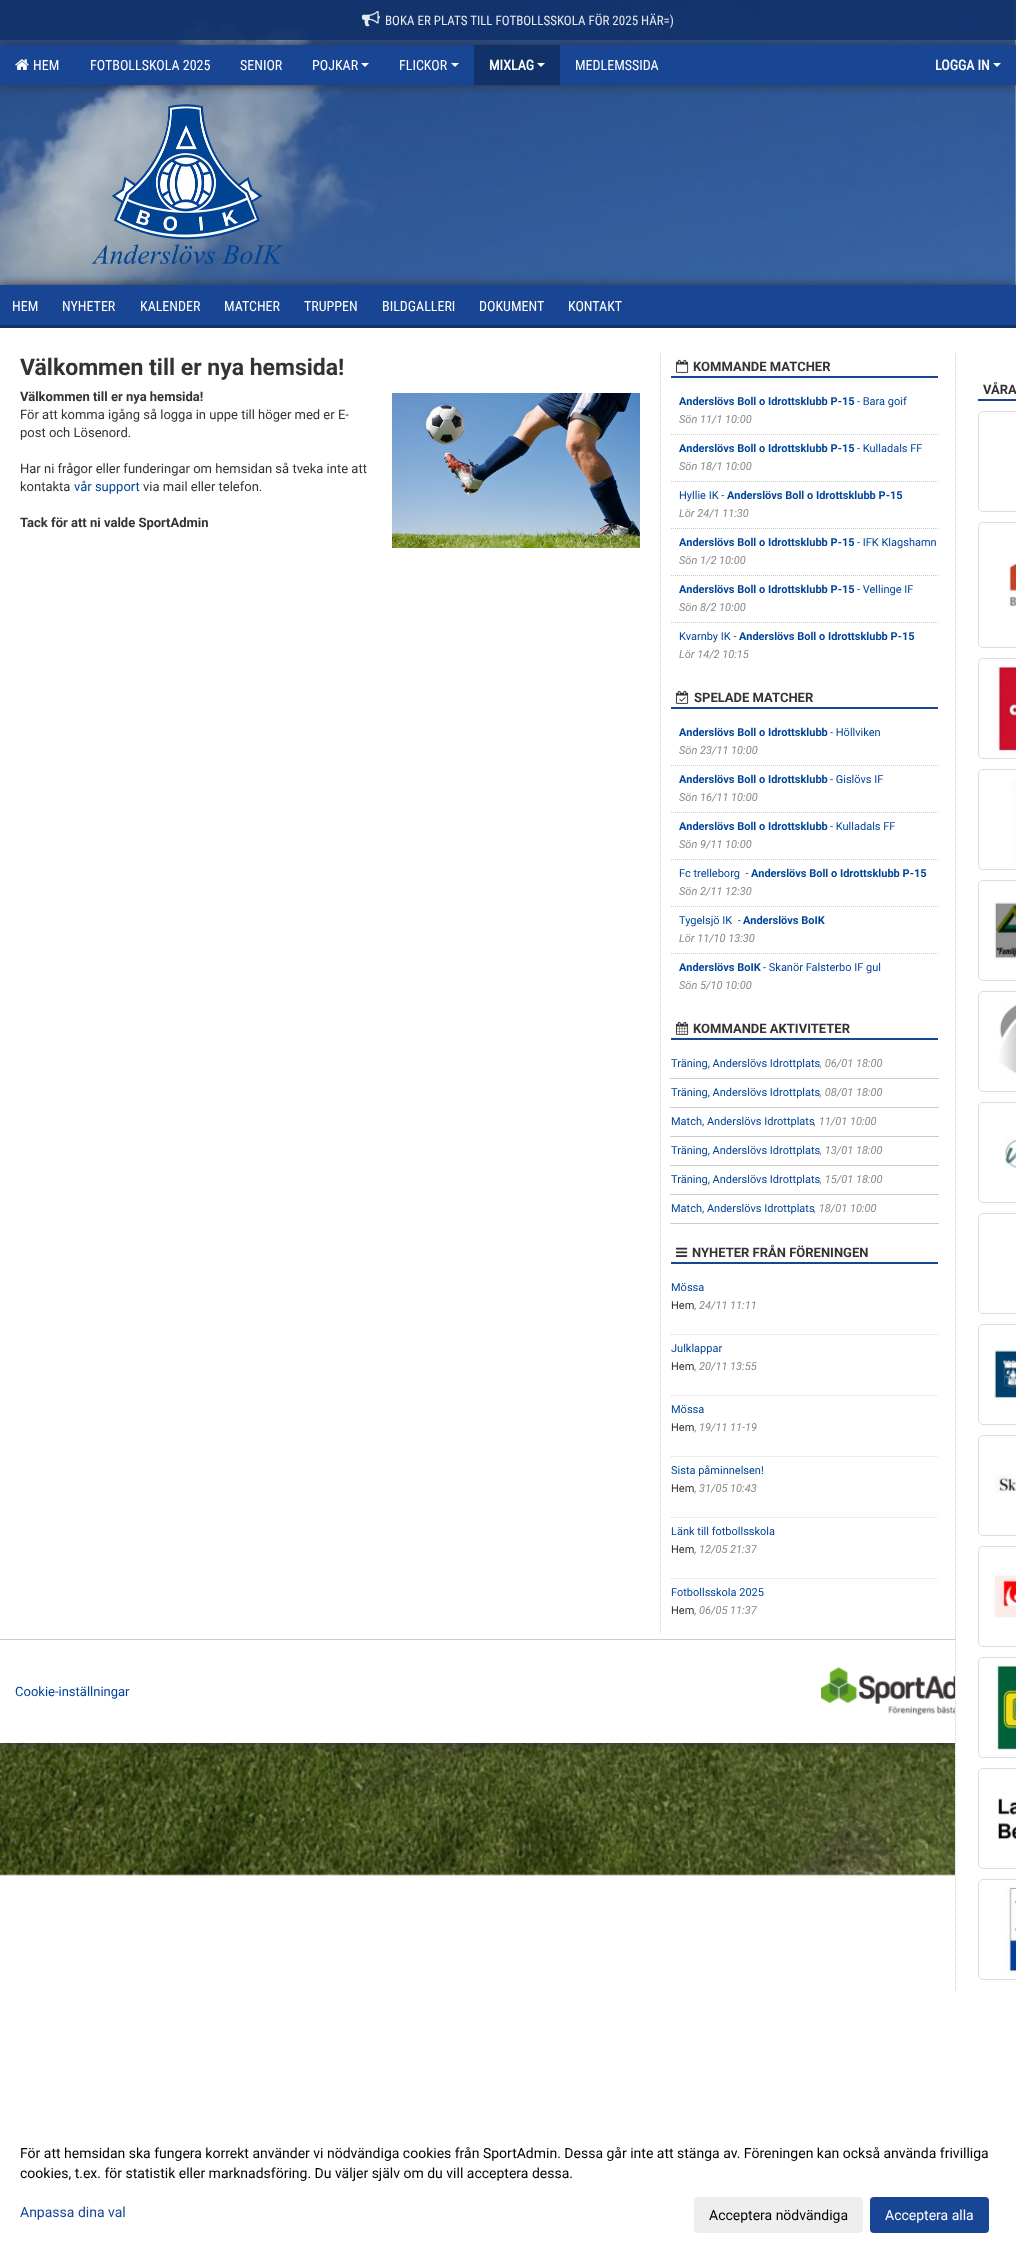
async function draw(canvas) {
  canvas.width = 1016
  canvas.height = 2253
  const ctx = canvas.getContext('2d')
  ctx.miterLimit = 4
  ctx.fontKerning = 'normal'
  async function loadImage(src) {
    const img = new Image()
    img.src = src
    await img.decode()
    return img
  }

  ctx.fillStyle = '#fff'
  ctx.fillRect(0, 0, 1016, 2253)
  ctx.drawImage(await loadImage('image0.png'), 0, 0, 1016, 1876)
  ctx.fillStyle = '#333'
  ctx.filter = 'blur(5px)'
  ctx.beginPath()
  ctx.rect(0, 45, 1016, 40)
  ctx.fill()
  ctx.filter = 'none'
  ctx.fillStyle = '#113169e6'
  ctx.fillRect(0, 0, 1016, 40)
  ctx.drawImage(await loadImage('image1.png'), 362, 10, 18, 17)
  ctx.font = '13px Roboto Condensed'
  ctx.fillStyle = '#e7ebf0'
  ctx.fillText('BOKA ER PLATS TILL FOTBOLLSSKOLA FÖR 2025 HÄR=)', 385, 25)
  ctx.fillStyle = '#184594'
  ctx.fillRect(0, 45, 1016, 40)
  ctx.drawImage(await loadImage('image2.png'), 15, 59, 14, 11)
  ctx.font = '14px Roboto Condensed'
  ctx.fillStyle = '#fff'
  ctx.fillText('HEM', 33, 70)
  ctx.fillText('FOTBOLLSKOLA 2025', 90, 70)
  ctx.fillText('SENIOR', 240, 70)
  ctx.fillText('POJKAR', 312, 70)
  ctx.beginPath()
  ctx.moveTo(361, 63)
  ctx.lineTo(369, 63)
  ctx.lineTo(365, 67)
  ctx.closePath()
  ctx.fill()
  ctx.fillText('FLICKOR', 399, 70)
  ctx.beginPath()
  ctx.moveTo(451, 63)
  ctx.lineTo(459, 63)
  ctx.lineTo(455, 67)
  ctx.closePath()
  ctx.fill()
  ctx.fillStyle = '#113169'
  ctx.fillRect(474, 45, 86, 40)
  ctx.font = 'bold 14px Roboto Condensed'
  ctx.fillStyle = '#fff'
  ctx.fillText('MIXLAG', 489, 70)
  ctx.beginPath()
  ctx.moveTo(537, 63)
  ctx.lineTo(545, 63)
  ctx.lineTo(541, 67)
  ctx.closePath()
  ctx.fill()
  ctx.font = '14px Roboto Condensed'
  ctx.fillText('MEDLEMSSIDA', 575, 70)
  ctx.font = 'bold 14px Roboto Condensed'
  ctx.fillText('LOGGA IN', 935, 70)
  ctx.beginPath()
  ctx.moveTo(993, 63)
  ctx.lineTo(1001, 63)
  ctx.lineTo(997, 67)
  ctx.closePath()
  ctx.fill()
  ctx.drawImage(await loadImage('image3.png'), 91, 104, 192, 160)
  ctx.fillStyle = '#333'
  ctx.filter = 'blur(5px)'
  ctx.beginPath()
  ctx.rect(0, 285, 1016, 1458)
  ctx.fill()
  ctx.filter = 'none'
  ctx.fillStyle = '#fff'
  ctx.fillRect(0, 328, 1016, 1311)
  ctx.fillStyle = '#184594'
  ctx.fillRect(0, 285, 1016, 40)
  ctx.font = '14px Roboto Condensed'
  ctx.fillStyle = '#fff'
  ctx.fillText('HEM', 12, 311)
  ctx.fillText('NYHETER', 62, 311)
  ctx.fillText('KALENDER', 140, 311)
  ctx.fillText('MATCHER', 224, 311)
  ctx.fillText('TRUPPEN', 304, 311)
  ctx.fillText('BILDGALLERI', 382, 311)
  ctx.fillText('DOKUMENT', 479, 311)
  ctx.fillText('KONTAKT', 568, 311)
  ctx.fillStyle = '#113169'
  ctx.fillRect(0, 325, 1016, 3)
  ctx.font = 'bold 23px Roboto'
  ctx.fillStyle = '#333'
  ctx.fillText('Välkommen till er nya hemsida!', 20, 375)
  ctx.font = 'bold 13px Roboto'
  ctx.fillText('Välkommen till er nya hemsida!', 20, 401)
  ctx.drawImage(await loadImage('image4.png'), 392, 393, 248, 155)
  ctx.font = '13px Roboto'
  ctx.fillText('För att komma igång så logga in uppe till höger med er E-', 20, 419)
  ctx.fillText('post och Lösenord.', 20, 437)
  ctx.fillText('Har ni frågor eller funderingar om hemsidan så tveka inte att', 20, 473)
  ctx.fillText('kontakta', 20, 491)
  ctx.fillStyle = '#049'
  ctx.fillText('vår support', 74, 491)
  ctx.fillStyle = '#333'
  ctx.fillText('via mail eller telefon.', 143, 491)
  ctx.font = 'bold 13px Roboto'
  ctx.fillText('Tack för att ni valde SportAdmin', 20, 527)
  ctx.beginPath()
  ctx.moveTo(660.5, 353)
  ctx.lineTo(660.5, 1635)
  ctx.strokeStyle = '#ccc'
  ctx.setLineDash([1, 1])
  ctx.stroke()
  ctx.fillStyle = '#184594'
  ctx.fillRect(671, 376, 267, 2)
  ctx.drawImage(await loadImage('image5.png'), 676, 359, 13, 14)
  ctx.fillStyle = '#333'
  ctx.fillText('KOMMANDE MATCHER', 693, 371)
  ctx.font = 'bold 11px Roboto'
  ctx.fillStyle = '#049'
  ctx.fillText('Anderslövs Boll o Idrottsklubb P-15', 679, 405)
  ctx.font = '11px Roboto'
  ctx.fillText('- Bara goif', 857, 405)
  ctx.beginPath()
  ctx.moveTo(671, 434.5)
  ctx.lineTo(938, 434.5)
  ctx.stroke()
  ctx.font = 'italic 11px Roboto'
  ctx.fillStyle = '#888'
  ctx.fillText('Sön 11/1 10:00', 679, 423)
  ctx.font = 'bold 11px Roboto'
  ctx.fillStyle = '#049'
  ctx.fillText('Anderslövs Boll o Idrottsklubb P-15', 679, 452)
  ctx.font = '11px Roboto'
  ctx.fillText('- Kulladals FF', 857, 452)
  ctx.beginPath()
  ctx.moveTo(671, 481.5)
  ctx.lineTo(938, 481.5)
  ctx.stroke()
  ctx.font = 'italic 11px Roboto'
  ctx.fillStyle = '#888'
  ctx.fillText('Sön 18/1 10:00', 679, 470)
  ctx.font = '11px Roboto'
  ctx.fillStyle = '#049'
  ctx.fillText('Hyllie IK -', 679, 499)
  ctx.font = 'bold 11px Roboto'
  ctx.fillText('Anderslövs Boll o Idrottsklubb P-15', 727, 499)
  ctx.beginPath()
  ctx.moveTo(671, 528.5)
  ctx.lineTo(938, 528.5)
  ctx.stroke()
  ctx.font = 'italic 11px Roboto'
  ctx.fillStyle = '#888'
  ctx.fillText('Lör 24/1 11:30', 679, 517)
  ctx.font = 'bold 11px Roboto'
  ctx.fillStyle = '#049'
  ctx.fillText('Anderslövs Boll o Idrottsklubb P-15', 679, 546)
  ctx.font = '11px Roboto'
  ctx.fillText('- IFK Klagshamn', 857, 546)
  ctx.beginPath()
  ctx.moveTo(671, 575.5)
  ctx.lineTo(938, 575.5)
  ctx.stroke()
  ctx.font = 'italic 11px Roboto'
  ctx.fillStyle = '#888'
  ctx.fillText('Sön 1/2 10:00', 679, 564)
  ctx.font = 'bold 11px Roboto'
  ctx.fillStyle = '#049'
  ctx.fillText('Anderslövs Boll o Idrottsklubb P-15', 679, 593)
  ctx.font = '11px Roboto'
  ctx.fillText('- Vellinge IF', 857, 593)
  ctx.beginPath()
  ctx.moveTo(671, 622.5)
  ctx.lineTo(938, 622.5)
  ctx.stroke()
  ctx.font = 'italic 11px Roboto'
  ctx.fillStyle = '#888'
  ctx.fillText('Sön 8/2 10:00', 679, 611)
  ctx.font = '11px Roboto'
  ctx.fillStyle = '#049'
  ctx.fillText('Kvarnby IK -', 679, 640)
  ctx.font = 'bold 11px Roboto'
  ctx.fillText('Anderslövs Boll o Idrottsklubb P-15', 739, 640)
  ctx.font = 'italic 11px Roboto'
  ctx.fillStyle = '#888'
  ctx.fillText('Lör 14/2 10:15', 679, 658)
  ctx.fillStyle = '#184594'
  ctx.fillRect(671, 707, 267, 2)
  ctx.drawImage(await loadImage('image6.png'), 676, 690, 13, 14)
  ctx.font = 'bold 13px Roboto'
  ctx.fillStyle = '#333'
  ctx.fillText('SPELADE MATCHER', 694, 702)
  ctx.font = 'bold 11px Roboto'
  ctx.fillStyle = '#049'
  ctx.fillText('Anderslövs Boll o Idrottsklubb', 679, 736)
  ctx.font = '11px Roboto'
  ctx.fillText('- Höllviken', 830, 736)
  ctx.beginPath()
  ctx.moveTo(671, 765.5)
  ctx.lineTo(938, 765.5)
  ctx.stroke()
  ctx.font = 'italic 11px Roboto'
  ctx.fillStyle = '#888'
  ctx.fillText('Sön 23/11 10:00', 679, 754)
  ctx.font = 'bold 11px Roboto'
  ctx.fillStyle = '#049'
  ctx.fillText('Anderslövs Boll o Idrottsklubb', 679, 783)
  ctx.font = '11px Roboto'
  ctx.fillText('- Gislövs IF', 830, 783)
  ctx.beginPath()
  ctx.moveTo(671, 812.5)
  ctx.lineTo(938, 812.5)
  ctx.stroke()
  ctx.font = 'italic 11px Roboto'
  ctx.fillStyle = '#888'
  ctx.fillText('Sön 16/11 10:00', 679, 801)
  ctx.font = 'bold 11px Roboto'
  ctx.fillStyle = '#049'
  ctx.fillText('Anderslövs Boll o Idrottsklubb', 679, 830)
  ctx.font = '11px Roboto'
  ctx.fillText('- Kulladals FF', 830, 830)
  ctx.beginPath()
  ctx.moveTo(671, 859.5)
  ctx.lineTo(938, 859.5)
  ctx.stroke()
  ctx.font = 'italic 11px Roboto'
  ctx.fillStyle = '#888'
  ctx.fillText('Sön 9/11 10:00', 679, 848)
  ctx.font = '11px Roboto'
  ctx.fillStyle = '#049'
  ctx.fillText('Fc trelleborg  -', 679, 877)
  ctx.font = 'bold 11px Roboto'
  ctx.fillText('Anderslövs Boll o Idrottsklubb P-15', 751, 877)
  ctx.beginPath()
  ctx.moveTo(671, 906.5)
  ctx.lineTo(938, 906.5)
  ctx.stroke()
  ctx.font = 'italic 11px Roboto'
  ctx.fillStyle = '#888'
  ctx.fillText('Sön 2/11 12:30', 679, 895)
  ctx.font = '11px Roboto'
  ctx.fillStyle = '#049'
  ctx.fillText('Tygelsjö IK  -', 679, 924)
  ctx.font = 'bold 11px Roboto'
  ctx.fillText('Anderslövs BoIK', 743, 924)
  ctx.beginPath()
  ctx.moveTo(671, 953.5)
  ctx.lineTo(938, 953.5)
  ctx.stroke()
  ctx.font = 'italic 11px Roboto'
  ctx.fillStyle = '#888'
  ctx.fillText('Lör 11/10 13:30', 679, 942)
  ctx.font = 'bold 11px Roboto'
  ctx.fillStyle = '#049'
  ctx.fillText('Anderslövs BoIK', 679, 971)
  ctx.font = '11px Roboto'
  ctx.fillText('- Skanör Falsterbo IF gul', 763, 971)
  ctx.font = 'italic 11px Roboto'
  ctx.fillStyle = '#888'
  ctx.fillText('Sön 5/10 10:00', 679, 989)
  ctx.fillStyle = '#184594'
  ctx.fillRect(671, 1038, 267, 2)
  ctx.drawImage(await loadImage('image7.png'), 676, 1021, 13, 14)
  ctx.font = 'bold 13px Roboto'
  ctx.fillStyle = '#333'
  ctx.fillText('KOMMANDE AKTIVITETER', 693, 1033)
  ctx.fillStyle = '#ccc'
  ctx.fillRect(670, 1078, 269, 1)
  ctx.font = '11px Roboto'
  ctx.fillStyle = '#049'
  ctx.fillText('Träning, Anderslövs Idrottplats', 671, 1067)
  ctx.font = 'italic 11px Roboto'
  ctx.fillStyle = '#888'
  ctx.fillText(', 06/01 18:00', 820, 1067)
  ctx.fillStyle = '#ccc'
  ctx.fillRect(670, 1107, 269, 1)
  ctx.font = '11px Roboto'
  ctx.fillStyle = '#049'
  ctx.fillText('Träning, Anderslövs Idrottplats', 671, 1096)
  ctx.font = 'italic 11px Roboto'
  ctx.fillStyle = '#888'
  ctx.fillText(', 08/01 18:00', 820, 1096)
  ctx.fillStyle = '#ccc'
  ctx.fillRect(670, 1136, 269, 1)
  ctx.font = '11px Roboto'
  ctx.fillStyle = '#049'
  ctx.fillText('Match, Anderslövs Idrottplats', 671, 1125)
  ctx.font = 'italic 11px Roboto'
  ctx.fillStyle = '#888'
  ctx.fillText(', 11/01 10:00', 814, 1125)
  ctx.fillStyle = '#ccc'
  ctx.fillRect(670, 1165, 269, 1)
  ctx.font = '11px Roboto'
  ctx.fillStyle = '#049'
  ctx.fillText('Träning, Anderslövs Idrottplats', 671, 1154)
  ctx.font = 'italic 11px Roboto'
  ctx.fillStyle = '#888'
  ctx.fillText(', 13/01 18:00', 820, 1154)
  ctx.fillStyle = '#ccc'
  ctx.fillRect(670, 1194, 269, 1)
  ctx.font = '11px Roboto'
  ctx.fillStyle = '#049'
  ctx.fillText('Träning, Anderslövs Idrottplats', 671, 1183)
  ctx.font = 'italic 11px Roboto'
  ctx.fillStyle = '#888'
  ctx.fillText(', 15/01 18:00', 820, 1183)
  ctx.fillStyle = '#ccc'
  ctx.fillRect(670, 1223, 269, 1)
  ctx.font = '11px Roboto'
  ctx.fillStyle = '#049'
  ctx.fillText('Match, Anderslövs Idrottplats', 671, 1212)
  ctx.font = 'italic 11px Roboto'
  ctx.fillStyle = '#888'
  ctx.fillText(', 18/01 10:00', 814, 1212)
  ctx.fillStyle = '#184594'
  ctx.fillRect(671, 1262, 267, 2)
  ctx.drawImage(await loadImage('image8.png'), 676, 1247, 12, 10)
  ctx.font = 'bold 13px Roboto'
  ctx.fillStyle = '#333'
  ctx.fillText('NYHETER FRÅN FÖRENINGEN', 692, 1257)
  ctx.font = '11px Roboto'
  ctx.fillStyle = '#049'
  ctx.fillText('Mössa', 671, 1291)
  ctx.fillStyle = '#333'
  ctx.fillText('Hem', 671, 1309)
  ctx.fillStyle = '#888'
  ctx.fillText(',', 694, 1309)
  ctx.font = 'italic 11px Roboto'
  ctx.fillText('24/11 11:11', 699, 1309)
  ctx.beginPath()
  ctx.moveTo(671, 1334.5)
  ctx.lineTo(938, 1334.5)
  ctx.strokeStyle = '#ddd'
  ctx.stroke()
  ctx.font = '11px Roboto'
  ctx.fillStyle = '#049'
  ctx.fillText('Julklappar', 671, 1352)
  ctx.fillStyle = '#333'
  ctx.fillText('Hem', 671, 1370)
  ctx.fillStyle = '#888'
  ctx.fillText(',', 694, 1370)
  ctx.font = 'italic 11px Roboto'
  ctx.fillText('20/11 13:55', 699, 1370)
  ctx.beginPath()
  ctx.moveTo(671, 1395.5)
  ctx.lineTo(938, 1395.5)
  ctx.stroke()
  ctx.font = '11px Roboto'
  ctx.fillStyle = '#049'
  ctx.fillText('Mössa', 671, 1413)
  ctx.fillStyle = '#333'
  ctx.fillText('Hem', 671, 1431)
  ctx.fillStyle = '#888'
  ctx.fillText(',', 694, 1431)
  ctx.font = 'italic 11px Roboto'
  ctx.fillText('19/11 11-19', 699, 1431)
  ctx.beginPath()
  ctx.moveTo(671, 1456.5)
  ctx.lineTo(938, 1456.5)
  ctx.stroke()
  ctx.font = '11px Roboto'
  ctx.fillStyle = '#049'
  ctx.fillText('Sista påminnelsen!', 671, 1474)
  ctx.fillStyle = '#333'
  ctx.fillText('Hem', 671, 1492)
  ctx.fillStyle = '#888'
  ctx.fillText(',', 694, 1492)
  ctx.font = 'italic 11px Roboto'
  ctx.fillText('31/05 10:43', 699, 1492)
  ctx.beginPath()
  ctx.moveTo(671, 1517.5)
  ctx.lineTo(938, 1517.5)
  ctx.stroke()
  ctx.font = '11px Roboto'
  ctx.fillStyle = '#049'
  ctx.fillText('Länk till fotbollsskola', 671, 1535)
  ctx.fillStyle = '#333'
  ctx.fillText('Hem', 671, 1553)
  ctx.fillStyle = '#888'
  ctx.fillText(',', 694, 1553)
  ctx.font = 'italic 11px Roboto'
  ctx.fillText('12/05 21:37', 699, 1553)
  ctx.beginPath()
  ctx.moveTo(671, 1578.5)
  ctx.lineTo(938, 1578.5)
  ctx.stroke()
  ctx.font = '11px Roboto'
  ctx.fillStyle = '#049'
  ctx.fillText('Fotbollsskola 2025', 671, 1596)
  ctx.fillStyle = '#333'
  ctx.fillText('Hem', 671, 1614)
  ctx.fillStyle = '#888'
  ctx.fillText(',', 694, 1614)
  ctx.font = 'italic 11px Roboto'
  ctx.fillText('06/05 11:37', 699, 1614)
  ctx.fillStyle = '#fff'
  ctx.fillRect(955, 1639, 61, 237)
  ctx.beginPath()
  ctx.moveTo(955.5, 353)
  ctx.lineTo(955.5, 1990)
  ctx.strokeStyle = '#ccc'
  ctx.stroke()
  ctx.fillStyle = '#184594'
  ctx.fillRect(978, 399, 38, 2)
  ctx.font = 'bold 13px Roboto'
  ctx.fillStyle = '#333'
  ctx.fillText('VÅRA', 983, 394)
  ctx.beginPath()
  ctx.roundRect(978.5, 411.5, 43, 100, 4.5)
  ctx.strokeStyle = '#ddd'
  ctx.setLineDash([])
  ctx.stroke()
  ctx.beginPath()
  ctx.roundRect(978.5, 522.5, 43, 125, 4.5)
  ctx.stroke()
  ctx.drawImage(await loadImage('image9.png'), 1008, 563, 8, 44)
  ctx.beginPath()
  ctx.roundRect(978.5, 658.5, 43, 100, 4.5)
  ctx.stroke()
  ctx.drawImage(await loadImage('image10.png'), 995, 666, 21, 88)
  ctx.beginPath()
  ctx.roundRect(978.5, 769.5, 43, 100, 4.5)
  ctx.stroke()
  ctx.drawImage(await loadImage('image11.png'), 1010, 778, 6, 87)
  ctx.beginPath()
  ctx.roundRect(978.5, 880.5, 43, 100, 4.5)
  ctx.stroke()
  ctx.drawImage(await loadImage('image12.png'), 994, 902, 22, 58)
  ctx.beginPath()
  ctx.roundRect(978.5, 991.5, 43, 100, 4.5)
  ctx.stroke()
  ctx.drawImage(await loadImage('image13.png'), 999, 1004, 17, 70)
  ctx.beginPath()
  ctx.roundRect(978.5, 1102.5, 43, 100, 4.5)
  ctx.stroke()
  ctx.drawImage(await loadImage('image14.png'), 1004, 1138, 12, 31)
  ctx.beginPath()
  ctx.roundRect(978.5, 1213.5, 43, 100, 4.5)
  ctx.stroke()
  ctx.beginPath()
  ctx.roundRect(978.5, 1324.5, 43, 100, 4.5)
  ctx.stroke()
  ctx.drawImage(await loadImage('image15.png'), 994, 1349, 22, 52)
  ctx.beginPath()
  ctx.roundRect(978.5, 1435.5, 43, 100, 4.5)
  ctx.stroke()
  ctx.drawImage(await loadImage('image16.png'), 995, 1474, 21, 19)
  ctx.beginPath()
  ctx.roundRect(978.5, 1546.5, 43, 100, 4.5)
  ctx.stroke()
  ctx.drawImage(await loadImage('image17.png'), 994, 1575, 22, 43)
  ctx.beginPath()
  ctx.roundRect(978.5, 1657.5, 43, 100, 4.5)
  ctx.stroke()
  ctx.drawImage(await loadImage('image18.png'), 995, 1665, 21, 85)
  ctx.beginPath()
  ctx.roundRect(978.5, 1768.5, 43, 100, 4.5)
  ctx.stroke()
  ctx.drawImage(await loadImage('image19.png'), 997, 1798, 19, 42)
  ctx.beginPath()
  ctx.roundRect(978.5, 1879.5, 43, 100, 4.5)
  ctx.stroke()
  ctx.drawImage(await loadImage('image20.png'), 1003, 1887, 13, 88)
  ctx.fillStyle = '#fff'
  ctx.fillRect(0, 1640, 955, 103)
  ctx.fillStyle = '#ccc'
  ctx.fillRect(0, 1639, 955, 1)
  ctx.font = '13px Roboto'
  ctx.fillStyle = '#049'
  ctx.fillText('Cookie-inställningar', 15, 1696)
  ctx.drawImage(await loadImage('image21.png'), 821, 1666, 134, 50)
  ctx.font = '14px Roboto'
  ctx.fillStyle = '#000'
  ctx.fillText('För att hemsidan ska fungera korrekt använder vi nödvändiga cookies från SportAdmin. Dessa går inte att stänga av. Föreningen kan också använda frivilliga', 20, 2158)
  ctx.fillText('cookies, t.ex. för statistik eller marknadsföring. Du väljer själv om du vill acceptera dessa.', 20, 2178)
  ctx.fillStyle = '#184594'
  ctx.fillText('Anpassa dina val', 20, 2217)
  ctx.fillStyle = '#eee'
  ctx.beginPath()
  ctx.roundRect(694, 2197, 169, 36, 4)
  ctx.fill()
  ctx.fillStyle = '#000'
  ctx.fillText('Acceptera nödvändiga', 709, 2220)
  ctx.fillStyle = '#184594'
  ctx.beginPath()
  ctx.roundRect(870, 2197, 119, 36, 4)
  ctx.fill()
  ctx.fillStyle = '#fff'
  ctx.fillText('Acceptera alla', 885, 2220)
}

draw(document.querySelector('canvas'))
